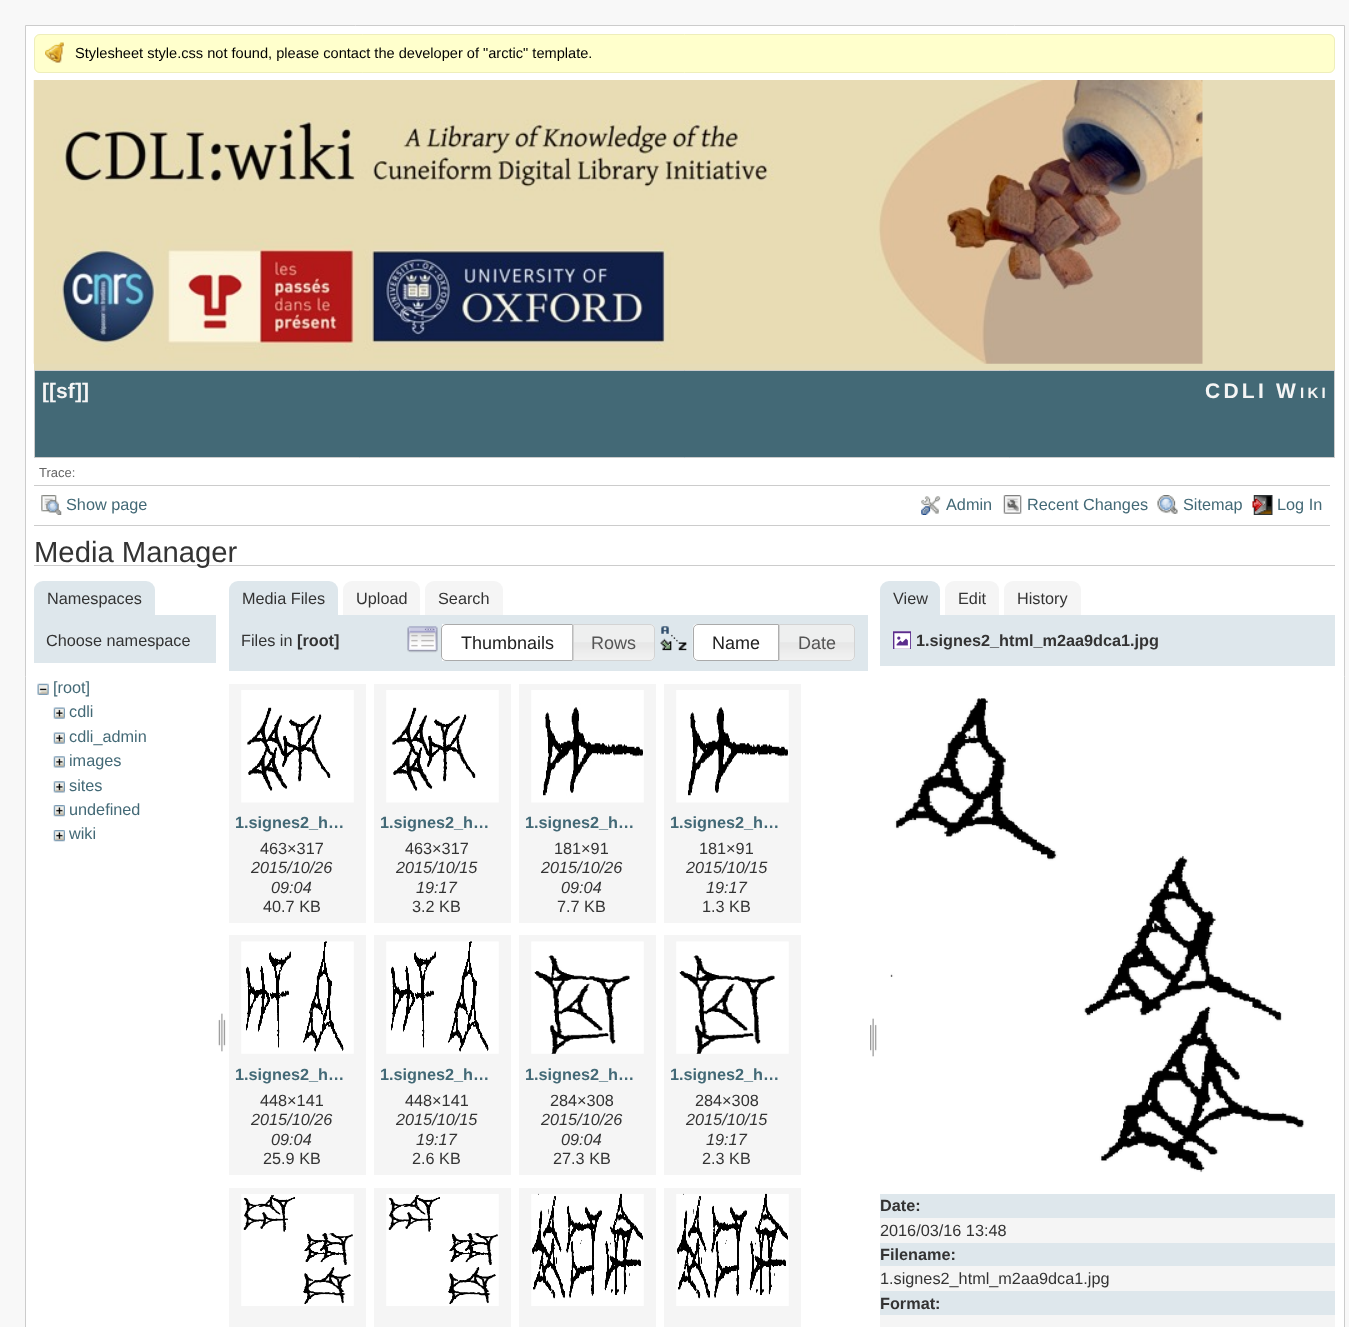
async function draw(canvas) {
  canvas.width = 1349
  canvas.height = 1327
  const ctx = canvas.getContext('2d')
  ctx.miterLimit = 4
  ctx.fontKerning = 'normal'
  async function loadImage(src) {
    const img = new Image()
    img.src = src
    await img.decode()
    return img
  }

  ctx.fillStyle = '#f8f8f8'
  ctx.fillRect(0, 0, 1349, 1327)
  ctx.fillStyle = '#fff'
  ctx.beginPath()
  ctx.rect(25.5, 25.5, 1319, 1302)
  ctx.fill()
  ctx.strokeStyle = '#ccc'
  ctx.stroke()
  ctx.fillStyle = '#ffc'
  ctx.beginPath()
  ctx.roundRect(34, 34, 1301, 39, 6)
  ctx.fill()
  ctx.drawImage(await loadImage('image0.png'), 45, 42, 19, 21)
  ctx.beginPath()
  ctx.roundRect(34.5, 34.5, 1300, 38, 5.5)
  ctx.strokeStyle = '#eeb'
  ctx.stroke()
  ctx.font = '14.6px Liberation Sans'
  ctx.fillStyle = '#000'
  ctx.fillText('Stylesheet style.css not found, please contact the developer of "arctic" template.', 75, 58)
  ctx.fillStyle = '#e6dcb8'
  ctx.fillRect(34, 80, 1301, 290)
  ctx.drawImage(await loadImage('image1.png'), 33, 80, 1170, 284)
  ctx.fillStyle = '#436976'
  ctx.beginPath()
  ctx.rect(34.5, 370.5, 1300, 87)
  ctx.fill()
  ctx.strokeStyle = '#ccc'
  ctx.stroke()
  ctx.font = 'bold 21px Liberation Sans'
  ctx.fillStyle = '#f5f5f5'
  ctx.fillText('[[', 42, 398)
  ctx.fillText('sf', 56, 398)
  ctx.fillText(']]', 75, 398)
  ctx.letterSpacing = '3.25px'
  ctx.fillText('CDLI W', 1205, 398)
  ctx.font = 'bold 15px Liberation Sans'
  ctx.fillText('IKI', 1300, 398)
  ctx.letterSpacing = '0px'
  ctx.font = '13px Liberation Sans'
  ctx.fillStyle = '#666'
  ctx.fillText('Trace:', 39, 477)
  ctx.fillStyle = '#ccc'
  ctx.fillRect(34, 485, 1296, 1)
  ctx.fillRect(34, 525, 1296, 1)
  ctx.drawImage(await loadImage('image2.png'), 41, 495, 21, 20)
  ctx.font = '16.25px Liberation Sans'
  ctx.fillStyle = '#436976'
  ctx.fillText('Show page', 66, 510)
  ctx.drawImage(await loadImage('image3.png'), 921, 496, 20, 19)
  ctx.fillText('Admin', 946, 510)
  ctx.drawImage(await loadImage('image4.png'), 1003, 495, 19, 19)
  ctx.fillText('Recent Changes', 1027, 510)
  ctx.drawImage(await loadImage('image5.png'), 1157, 495, 21, 19)
  ctx.fillText('Sitemap', 1183, 510)
  ctx.drawImage(await loadImage('image6.png'), 1252, 495, 21, 20)
  ctx.fillText('Log In', 1277, 510)
  ctx.fillStyle = '#ccc'
  ctx.fillRect(34, 565, 1301, 1)
  ctx.font = '29.25px Liberation Sans'
  ctx.fillStyle = '#333'
  ctx.fillText('Media Manager', 34, 562)
  ctx.fillStyle = '#dee7ec'
  ctx.beginPath()
  ctx.roundRect(34, 581, 121, 34, [9, 9, 0, 0])
  ctx.fill()
  ctx.font = '16.25px Liberation Sans'
  ctx.fillStyle = '#333'
  ctx.fillText('Namespaces', 47, 604)
  ctx.fillStyle = '#dee7ec'
  ctx.fillRect(34, 615, 182, 48)
  ctx.fillStyle = '#333'
  ctx.fillText('Choose namespace', 46, 646)
  ctx.drawImage(await loadImage('image7.png'), 37, 683, 12, 12)
  ctx.fillStyle = '#436976'
  ctx.fillText('[root]', 53, 693)
  ctx.drawImage(await loadImage('image8.png'), 53, 707, 12, 12)
  ctx.fillText('cdli', 69, 717)
  ctx.drawImage(await loadImage('image8.png'), 53, 732, 12, 12)
  ctx.fillText('cdli_admin', 69, 742)
  ctx.drawImage(await loadImage('image9.png'), 53, 756, 12, 12)
  ctx.fillText('images', 69, 766)
  ctx.drawImage(await loadImage('image10.png'), 53, 781, 12, 12)
  ctx.fillText('sites', 69, 791)
  ctx.drawImage(await loadImage('image11.png'), 53, 805, 12, 12)
  ctx.fillText('undefined', 69, 815)
  ctx.drawImage(await loadImage('image11.png'), 53, 830, 12, 12)
  ctx.fillText('wiki', 69, 839)
  ctx.drawImage(await loadImage('image12.png'), 218, 1013, 8, 39)
  ctx.fillStyle = '#dee7ec'
  ctx.beginPath()
  ctx.roundRect(229, 581, 109, 34, [9, 9, 0, 0])
  ctx.fill()
  ctx.fillStyle = '#333'
  ctx.fillText('Media Files', 242, 604)
  ctx.fillStyle = '#f5f5f5'
  ctx.beginPath()
  ctx.roundRect(343, 581, 77, 34, [9, 9, 0, 0])
  ctx.fill()
  ctx.fillStyle = '#333'
  ctx.fillText('Upload', 356, 604)
  ctx.fillStyle = '#f5f5f5'
  ctx.beginPath()
  ctx.roundRect(425, 581, 78, 34, [9, 9, 0, 0])
  ctx.fill()
  ctx.fillStyle = '#333'
  ctx.fillText('Search', 438, 604)
  ctx.fillStyle = '#dee7ec'
  ctx.fillRect(229, 615, 639, 56)
  ctx.fillStyle = '#333'
  ctx.fillText('Files in', 241, 646)
  ctx.font = 'bold 16.25px Liberation Sans'
  ctx.fillText('[root]', 297, 646)
  ctx.drawImage(await loadImage('image13.png'), 407, 626, 31, 27)
  ctx.fillStyle = '#fff'
  ctx.beginPath()
  ctx.roundRect(441, 624, 132, 37, [5, 0, 0, 5])
  ctx.fill()
  ctx.fillRect(442, 624, 3, 37)
  ctx.beginPath()
  ctx.roundRect(441.5, 624.5, 131, 36, [4.5, 0, 0, 4.5])
  ctx.strokeStyle = '#aaa'
  ctx.stroke()
  ctx.font = '18px Liberation Sans'
  ctx.fillStyle = '#212121'
  ctx.fillText('Thumbnails', 461, 649)
  ctx.drawImage(await loadImage('image14.png'), 572, 624, 83, 37)
  ctx.beginPath()
  ctx.roundRect(573.5, 624.5, 81, 36, [0, 4.5, 4.5, 0])
  ctx.strokeStyle = '#d3d3d3'
  ctx.stroke()
  ctx.fillStyle = '#555'
  ctx.fillText('Rows', 591, 649)
  ctx.drawImage(await loadImage('image15.png'), 660, 626, 27, 25)
  ctx.fillStyle = '#fff'
  ctx.beginPath()
  ctx.roundRect(693, 624, 86, 37, [5, 0, 0, 5])
  ctx.fill()
  ctx.drawImage(await loadImage('image16.png'), 692, 624, 5, 37)
  ctx.beginPath()
  ctx.roundRect(693.5, 624.5, 85, 36, [4.5, 0, 0, 4.5])
  ctx.strokeStyle = '#aaa'
  ctx.stroke()
  ctx.fillStyle = '#212121'
  ctx.fillText('Name', 712, 649)
  ctx.drawImage(await loadImage('image17.png'), 778, 624, 77, 37)
  ctx.beginPath()
  ctx.roundRect(779.5, 624.5, 75, 36, [0, 4.5, 4.5, 0])
  ctx.strokeStyle = '#d3d3d3'
  ctx.stroke()
  ctx.fillStyle = '#555'
  ctx.fillText('Date', 798, 649)
  ctx.fillStyle = '#f5f5f5'
  ctx.fillRect(229, 684, 137, 239)
  ctx.drawImage(await loadImage('image18.png'), 241, 690, 113, 113)
  ctx.font = 'bold 16.25px Liberation Sans'
  ctx.fillStyle = '#436976'
  ctx.fillText('1.signes2_h…', 235, 828)
  ctx.font = '16.25px Liberation Sans'
  ctx.fillStyle = '#333'
  ctx.fillText('463×317', 260, 854)
  ctx.font = 'italic 16.25px Liberation Sans'
  ctx.fillText('2015/10/26', 251, 873)
  ctx.fillText('09:04', 271, 893)
  ctx.font = '16.25px Liberation Sans'
  ctx.fillText('40.7 KB', 263, 912)
  ctx.fillStyle = '#f5f5f5'
  ctx.fillRect(374, 684, 137, 239)
  ctx.drawImage(await loadImage('image19.png'), 386, 690, 113, 113)
  ctx.font = 'bold 16.25px Liberation Sans'
  ctx.fillStyle = '#436976'
  ctx.fillText('1.signes2_h…', 380, 828)
  ctx.font = '16.25px Liberation Sans'
  ctx.fillStyle = '#333'
  ctx.fillText('463×317', 405, 854)
  ctx.font = 'italic 16.25px Liberation Sans'
  ctx.fillText('2015/10/15', 396, 873)
  ctx.fillText('19:17', 416, 893)
  ctx.font = '16.25px Liberation Sans'
  ctx.fillText('3.2 KB', 412, 912)
  ctx.fillStyle = '#f5f5f5'
  ctx.fillRect(519, 684, 137, 239)
  ctx.drawImage(await loadImage('image20.png'), 531, 690, 113, 113)
  ctx.font = 'bold 16.25px Liberation Sans'
  ctx.fillStyle = '#436976'
  ctx.fillText('1.signes2_h…', 525, 828)
  ctx.font = '16.25px Liberation Sans'
  ctx.fillStyle = '#333'
  ctx.fillText('181×91', 554, 854)
  ctx.font = 'italic 16.25px Liberation Sans'
  ctx.fillText('2015/10/26', 541, 873)
  ctx.fillText('09:04', 561, 893)
  ctx.font = '16.25px Liberation Sans'
  ctx.fillText('7.7 KB', 557, 912)
  ctx.fillStyle = '#f5f5f5'
  ctx.fillRect(664, 684, 137, 239)
  ctx.drawImage(await loadImage('image21.png'), 676, 690, 113, 113)
  ctx.font = 'bold 16.25px Liberation Sans'
  ctx.fillStyle = '#436976'
  ctx.fillText('1.signes2_h…', 670, 828)
  ctx.font = '16.25px Liberation Sans'
  ctx.fillStyle = '#333'
  ctx.fillText('181×91', 699, 854)
  ctx.font = 'italic 16.25px Liberation Sans'
  ctx.fillText('2015/10/15', 686, 873)
  ctx.fillText('19:17', 706, 893)
  ctx.font = '16.25px Liberation Sans'
  ctx.fillText('1.3 KB', 702, 912)
  ctx.fillStyle = '#f5f5f5'
  ctx.fillRect(229, 935, 137, 240)
  ctx.drawImage(await loadImage('image22.png'), 241, 941, 113, 113)
  ctx.font = 'bold 16.25px Liberation Sans'
  ctx.fillStyle = '#436976'
  ctx.fillText('1.signes2_h…', 235, 1080)
  ctx.font = '16.25px Liberation Sans'
  ctx.fillStyle = '#333'
  ctx.fillText('448×141', 260, 1106)
  ctx.font = 'italic 16.25px Liberation Sans'
  ctx.fillText('2015/10/26', 251, 1125)
  ctx.fillText('09:04', 271, 1145)
  ctx.font = '16.25px Liberation Sans'
  ctx.fillText('25.9 KB', 263, 1164)
  ctx.fillStyle = '#f5f5f5'
  ctx.fillRect(374, 935, 137, 240)
  ctx.drawImage(await loadImage('image23.png'), 386, 941, 113, 113)
  ctx.font = 'bold 16.25px Liberation Sans'
  ctx.fillStyle = '#436976'
  ctx.fillText('1.signes2_h…', 380, 1080)
  ctx.font = '16.25px Liberation Sans'
  ctx.fillStyle = '#333'
  ctx.fillText('448×141', 405, 1106)
  ctx.font = 'italic 16.25px Liberation Sans'
  ctx.fillText('2015/10/15', 396, 1125)
  ctx.fillText('19:17', 416, 1145)
  ctx.font = '16.25px Liberation Sans'
  ctx.fillText('2.6 KB', 412, 1164)
  ctx.fillStyle = '#f5f5f5'
  ctx.fillRect(519, 935, 137, 240)
  ctx.drawImage(await loadImage('image24.png'), 531, 941, 113, 113)
  ctx.font = 'bold 16.25px Liberation Sans'
  ctx.fillStyle = '#436976'
  ctx.fillText('1.signes2_h…', 525, 1080)
  ctx.font = '16.25px Liberation Sans'
  ctx.fillStyle = '#333'
  ctx.fillText('284×308', 550, 1106)
  ctx.font = 'italic 16.25px Liberation Sans'
  ctx.fillText('2015/10/26', 541, 1125)
  ctx.fillText('09:04', 561, 1145)
  ctx.font = '16.25px Liberation Sans'
  ctx.fillText('27.3 KB', 553, 1164)
  ctx.fillStyle = '#f5f5f5'
  ctx.fillRect(664, 935, 137, 240)
  ctx.drawImage(await loadImage('image25.png'), 676, 941, 113, 113)
  ctx.font = 'bold 16.25px Liberation Sans'
  ctx.fillStyle = '#436976'
  ctx.fillText('1.signes2_h…', 670, 1080)
  ctx.font = '16.25px Liberation Sans'
  ctx.fillStyle = '#333'
  ctx.fillText('284×308', 695, 1106)
  ctx.font = 'italic 16.25px Liberation Sans'
  ctx.fillText('2015/10/15', 686, 1125)
  ctx.fillText('19:17', 706, 1145)
  ctx.font = '16.25px Liberation Sans'
  ctx.fillText('2.3 KB', 702, 1164)
  ctx.fillStyle = '#f5f5f5'
  ctx.fillRect(229, 1188, 137, 139)
  ctx.drawImage(await loadImage('image26.png'), 241, 1194, 113, 112)
  ctx.fillRect(374, 1188, 137, 139)
  ctx.drawImage(await loadImage('image27.png'), 386, 1194, 113, 112)
  ctx.fillRect(519, 1188, 137, 139)
  ctx.drawImage(await loadImage('image28.png'), 531, 1193, 113, 113)
  ctx.fillRect(664, 1188, 137, 139)
  ctx.drawImage(await loadImage('image29.png'), 676, 1193, 113, 113)
  ctx.drawImage(await loadImage('image30.png'), 870, 1018, 7, 39)
  ctx.fillStyle = '#dee7ec'
  ctx.beginPath()
  ctx.roundRect(880, 581, 60, 34, [9, 9, 0, 0])
  ctx.fill()
  ctx.fillStyle = '#333'
  ctx.fillText('View', 893, 604)
  ctx.fillStyle = '#f5f5f5'
  ctx.beginPath()
  ctx.roundRect(945, 581, 54, 34, [9, 9, 0, 0])
  ctx.fill()
  ctx.fillStyle = '#333'
  ctx.fillText('Edit', 958, 604)
  ctx.fillStyle = '#f5f5f5'
  ctx.beginPath()
  ctx.roundRect(1004, 581, 77, 34, [9, 9, 0, 0])
  ctx.fill()
  ctx.fillStyle = '#333'
  ctx.fillText('History', 1017, 604)
  ctx.fillStyle = '#dee7ec'
  ctx.fillRect(880, 615, 455, 51)
  ctx.drawImage(await loadImage('image31.png'), 893, 631, 18, 18)
  ctx.font = 'bold 16.25px Liberation Sans'
  ctx.fillStyle = '#333'
  ctx.fillText('1.signes2_html_m2aa9dca1.jpg', 916, 646)
  ctx.drawImage(await loadImage('image32.png'), 890, 698, 415, 475)
  ctx.fillStyle = '#dee7ec'
  ctx.fillRect(880, 1194, 455, 24)
  ctx.fillStyle = '#333'
  ctx.fillText('Date:', 880, 1211)
  ctx.fillStyle = '#f5f5f5'
  ctx.fillRect(880, 1218, 455, 25)
  ctx.font = '16.25px Liberation Sans'
  ctx.fillStyle = '#333'
  ctx.fillText('2016/03/16 13:48', 880, 1236)
  ctx.fillStyle = '#dee7ec'
  ctx.fillRect(880, 1243, 455, 23)
  ctx.font = 'bold 16.25px Liberation Sans'
  ctx.fillStyle = '#333'
  ctx.fillText('Filename:', 880, 1260)
  ctx.fillStyle = '#f5f5f5'
  ctx.fillRect(880, 1266, 455, 25)
  ctx.font = '16.25px Liberation Sans'
  ctx.fillStyle = '#333'
  ctx.fillText('1.signes2_html_m2aa9dca1.jpg', 880, 1284)
  ctx.fillStyle = '#dee7ec'
  ctx.fillRect(880, 1291, 455, 24)
  ctx.font = 'bold 16.25px Liberation Sans'
  ctx.fillStyle = '#333'
  ctx.fillText('Format:', 880, 1309)
  ctx.fillStyle = '#f5f5f5'
  ctx.fillRect(880, 1315, 455, 12)
}

draw(document.querySelector('canvas'))
